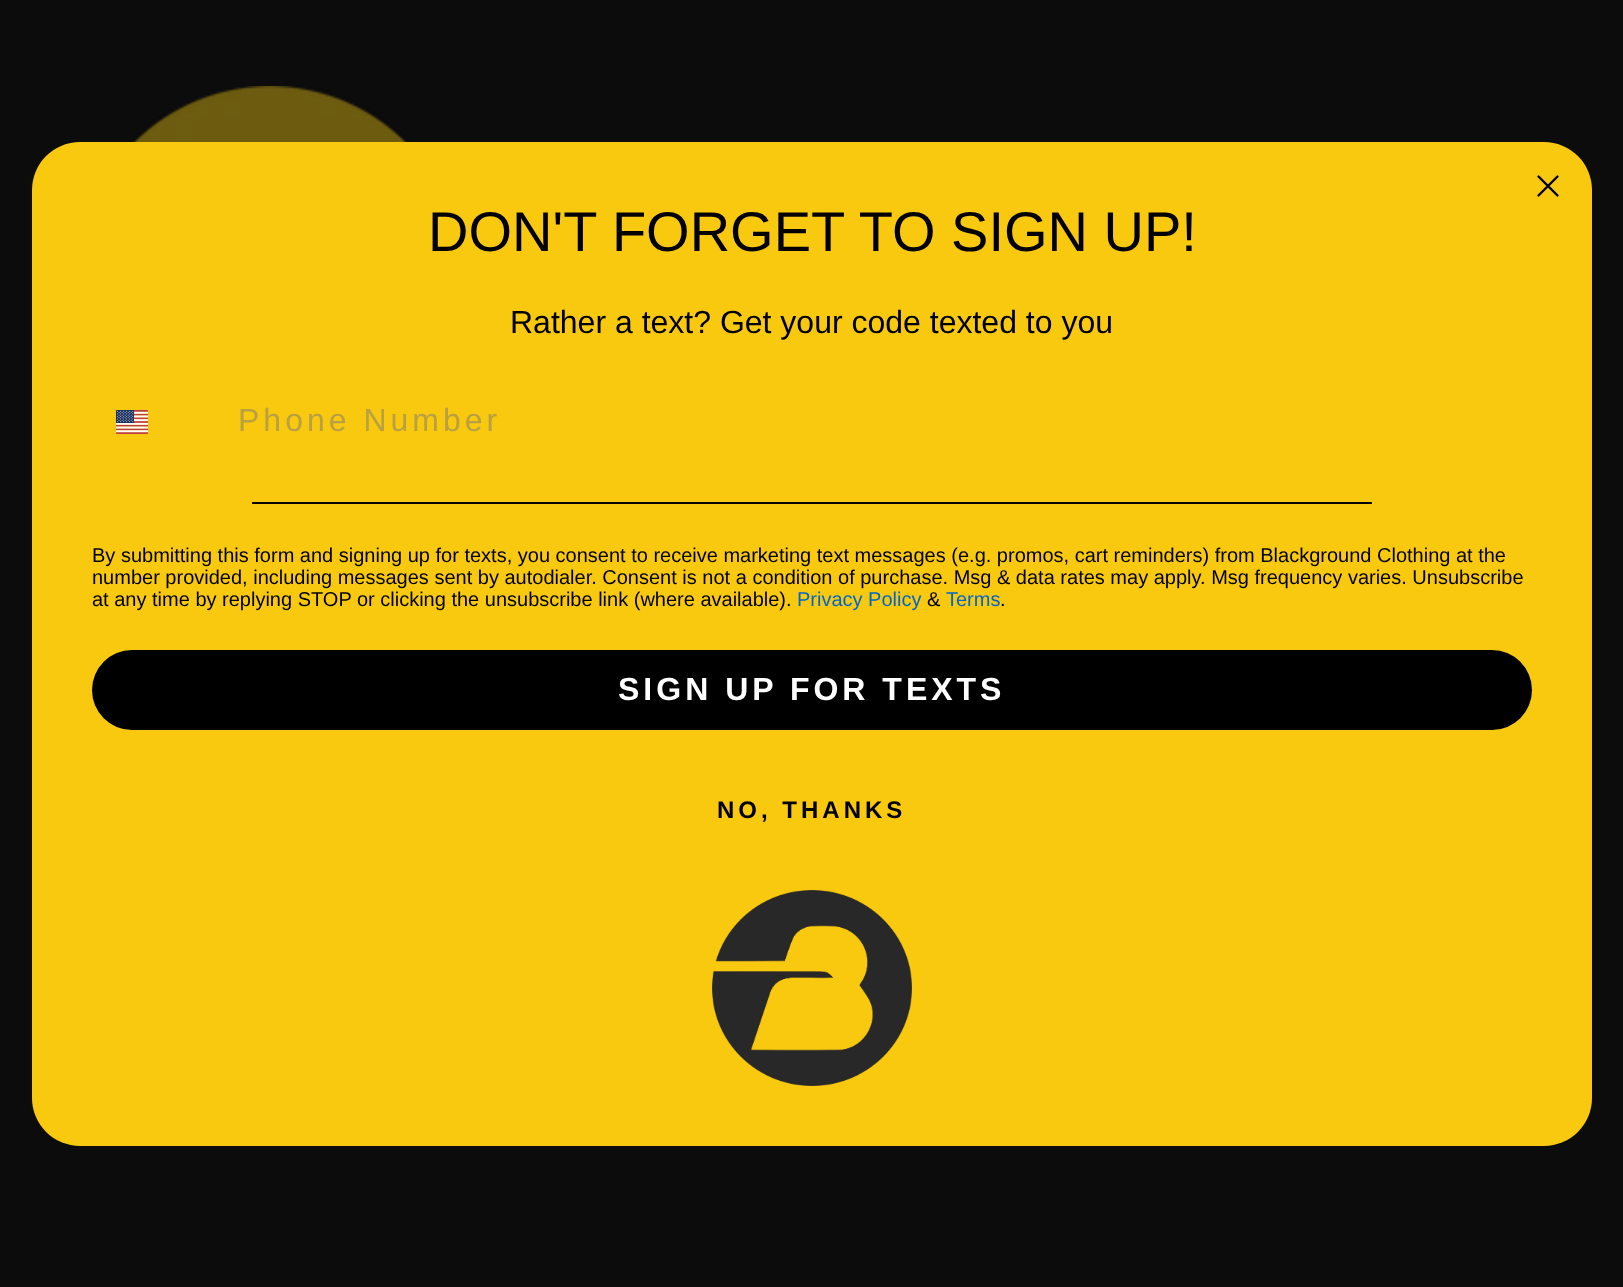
async function draw(canvas) {
  canvas.width = 1623
  canvas.height = 1287
  const ctx = canvas.getContext('2d')
  ctx.miterLimit = 4
  ctx.fontKerning = 'normal'
  async function loadImage(src) {
    const img = new Image()
    img.src = src
    await img.decode()
    return img
  }

  ctx.fillStyle = '#0c0c0c'
  ctx.fillRect(0, 0, 1623, 1287)
  ctx.drawImage(await loadImage('image0.png'), 132, 86, 276, 56)
  ctx.fillStyle = '#f9c910'
  ctx.beginPath()
  ctx.roundRect(32, 142, 1560, 1004, 48)
  ctx.fill()
  ctx.beginPath()
  ctx.moveTo(1538.5, 176.5)
  ctx.lineTo(1557.5, 195.5)
  ctx.moveTo(1538.5, 195.5)
  ctx.lineTo(1557.5, 176.5)
  ctx.closePath()
  ctx.strokeStyle = '#000'
  ctx.lineWidth = 2.4
  ctx.lineCap = 'round'
  ctx.lineJoin = 'round'
  ctx.stroke()
  ctx.font = '56px Liberation Sans'
  ctx.fillStyle = '#000'
  ctx.fillText('DON\'T FORGET TO SIGN UP!', 428, 251)
  ctx.font = '32px Liberation Sans'
  ctx.fillText('Rather a text? Get your code texted to you', 510, 333)
  ctx.drawImage(await loadImage('image1.png'), 116, 410, 32, 24)
  ctx.letterSpacing = '4px'
  ctx.fillStyle = '#b8a043'
  ctx.fillText('Phone Number', 238, 431)
  ctx.drawImage(await loadImage('image2.png'), 252, 502, 1120, 2)
  ctx.letterSpacing = '0px'
  ctx.font = '20px Liberation Sans'
  ctx.fillStyle = '#000'
  ctx.fillText('By submitting this form and signing up for texts, you consent to receive marketing text messages (e.g. promos, cart reminders) from Blackground Clothing at the', 92, 562)
  ctx.fillText('number provided, including messages sent by autodialer. Consent is not a condition of purchase. Msg & data rates may apply. Msg frequency varies. Unsubscribe', 92, 584)
  ctx.fillText('at any time by replying STOP or clicking the unsubscribe link (where available).', 92, 606)
  ctx.fillStyle = '#06c'
  ctx.fillText('Privacy Policy', 797, 606)
  ctx.fillStyle = '#000'
  ctx.fillText('&', 927, 606)
  ctx.fillStyle = '#06c'
  ctx.fillText('Terms', 946, 606)
  ctx.fillStyle = '#000'
  ctx.fillText('.', 1000, 606)
  ctx.beginPath()
  ctx.roundRect(92, 650, 1440, 80, 40)
  ctx.fill()
  ctx.letterSpacing = '4px'
  ctx.font = 'bold 32px Liberation Sans'
  ctx.fillStyle = '#fff'
  ctx.fillText('SIGN UP FOR TEXTS', 618, 700)
  ctx.font = 'bold 24px Liberation Sans'
  ctx.fillStyle = '#000'
  ctx.fillText('NO, THANKS', 717, 818)
  ctx.drawImage(await loadImage('image3.png'), 712, 890, 200, 196)
}

draw(document.querySelector('canvas'))
